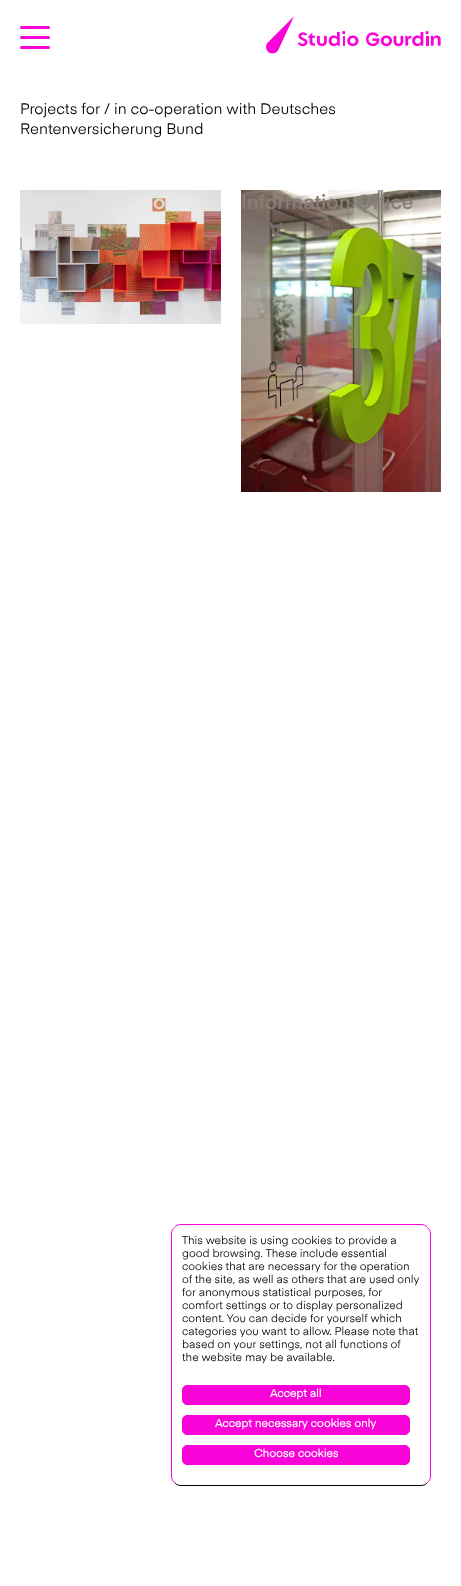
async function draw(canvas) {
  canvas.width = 461
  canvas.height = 1586
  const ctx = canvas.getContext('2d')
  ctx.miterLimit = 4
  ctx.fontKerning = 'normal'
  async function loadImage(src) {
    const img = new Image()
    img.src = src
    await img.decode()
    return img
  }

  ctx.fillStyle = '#fff'
  ctx.fillRect(0, 0, 461, 1586)
  ctx.fillStyle = '#f803d8'
  ctx.beginPath()
  ctx.roundRect(20, 26, 30, 3, 1.5)
  ctx.fill()
  ctx.beginPath()
  ctx.roundRect(20, 36, 30, 3, 1.5)
  ctx.fill()
  ctx.beginPath()
  ctx.roundRect(20, 46, 30, 3, 1.5)
  ctx.fill()
  ctx.drawImage(await loadImage('image0.png'), 266, 16, 175, 38)
  ctx.font = '15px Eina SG'
  ctx.fillStyle = '#000'
  ctx.fillText('Projects for / in co-operation with Deutsches', 20, 114)
  ctx.fillText('Rentenversicherung Bund', 20, 134)
  ctx.drawImage(await loadImage('image1.png'), 20, 190, 201, 134)
  ctx.font = '600 20px Eina SG'
  ctx.fillStyle = '#e2dddb'
  ctx.fillText('o', 153, 209)
  ctx.drawImage(await loadImage('image2.png'), 241, 190, 200, 302)
  ctx.fillStyle = '#887e75'
  ctx.fillText('Information Office', 241, 209)
  ctx.fillStyle = '#786e67'
  ctx.fillText('V', 269, 237)
  ctx.beginPath()
  ctx.moveTo(427.5, 1482.5)
  ctx.bezierCurveTo(426, 1484.5, 423.5, 1485.5, 421, 1485.5)
  ctx.lineTo(181, 1485.5)
  ctx.bezierCurveTo(178.5, 1485.5, 176, 1484.5, 174.5, 1482.5)
  ctx.strokeStyle = '#000'
  ctx.stroke()
  ctx.beginPath()
  ctx.moveTo(174.5, 1482.5)
  ctx.bezierCurveTo(172.5, 1481, 171.5, 1478.5, 171.5, 1476)
  ctx.lineTo(171.5, 1234)
  ctx.bezierCurveTo(171.5, 1231.5, 172.5, 1229, 174.5, 1227.5)
  ctx.bezierCurveTo(176, 1225.5, 178.5, 1224.5, 181, 1224.5)
  ctx.lineTo(421, 1224.5)
  ctx.bezierCurveTo(423.5, 1224.5, 426, 1225.5, 427.5, 1227.5)
  ctx.bezierCurveTo(429.5, 1229, 430.5, 1231.5, 430.5, 1234)
  ctx.lineTo(430.5, 1476)
  ctx.bezierCurveTo(430.5, 1478.5, 429.5, 1481, 427.5, 1482.5)
  ctx.strokeStyle = '#f803d8'
  ctx.stroke()
  ctx.font = '11px Eina SG'
  ctx.fillStyle = '#000'
  ctx.fillText('This website is using cookies to provide a', 182, 1244)
  ctx.fillText('good browsing. These include essential', 182, 1257)
  ctx.fillText('cookies that are necessary for the operation', 182, 1270)
  ctx.fillText('of the site, as well as others that are used only', 182, 1283)
  ctx.fillText('for anonymous statistical purposes, for', 182, 1296)
  ctx.fillText('comfort settings or to display personalized', 182, 1309)
  ctx.fillText('content. You can decide for yourself which', 182, 1322)
  ctx.fillText('categories you want to allow. Please note that', 182, 1335)
  ctx.fillText('based on your settings, not all functions of', 182, 1348)
  ctx.fillText('the website may be available.', 182, 1361)
  ctx.fillStyle = '#f803d8'
  ctx.beginPath()
  ctx.roundRect(182.5, 1385.5, 227, 19, 4.5)
  ctx.fill()
  ctx.stroke()
  ctx.font = 'bold 11px Eina SG'
  ctx.fillStyle = '#fff'
  ctx.fillText('Accept all', 270, 1397)
  ctx.fillStyle = '#f803d8'
  ctx.beginPath()
  ctx.roundRect(182.5, 1415.5, 227, 19, 4.5)
  ctx.fill()
  ctx.stroke()
  ctx.fillStyle = '#fff'
  ctx.fillText('Accept necessary cookies only', 215, 1427)
  ctx.fillStyle = '#f803d8'
  ctx.beginPath()
  ctx.roundRect(182.5, 1445.5, 227, 19, 4.5)
  ctx.fill()
  ctx.stroke()
  ctx.fillStyle = '#fff'
  ctx.fillText('Choose cookies', 254, 1457)
}

draw(document.querySelector('canvas'))
